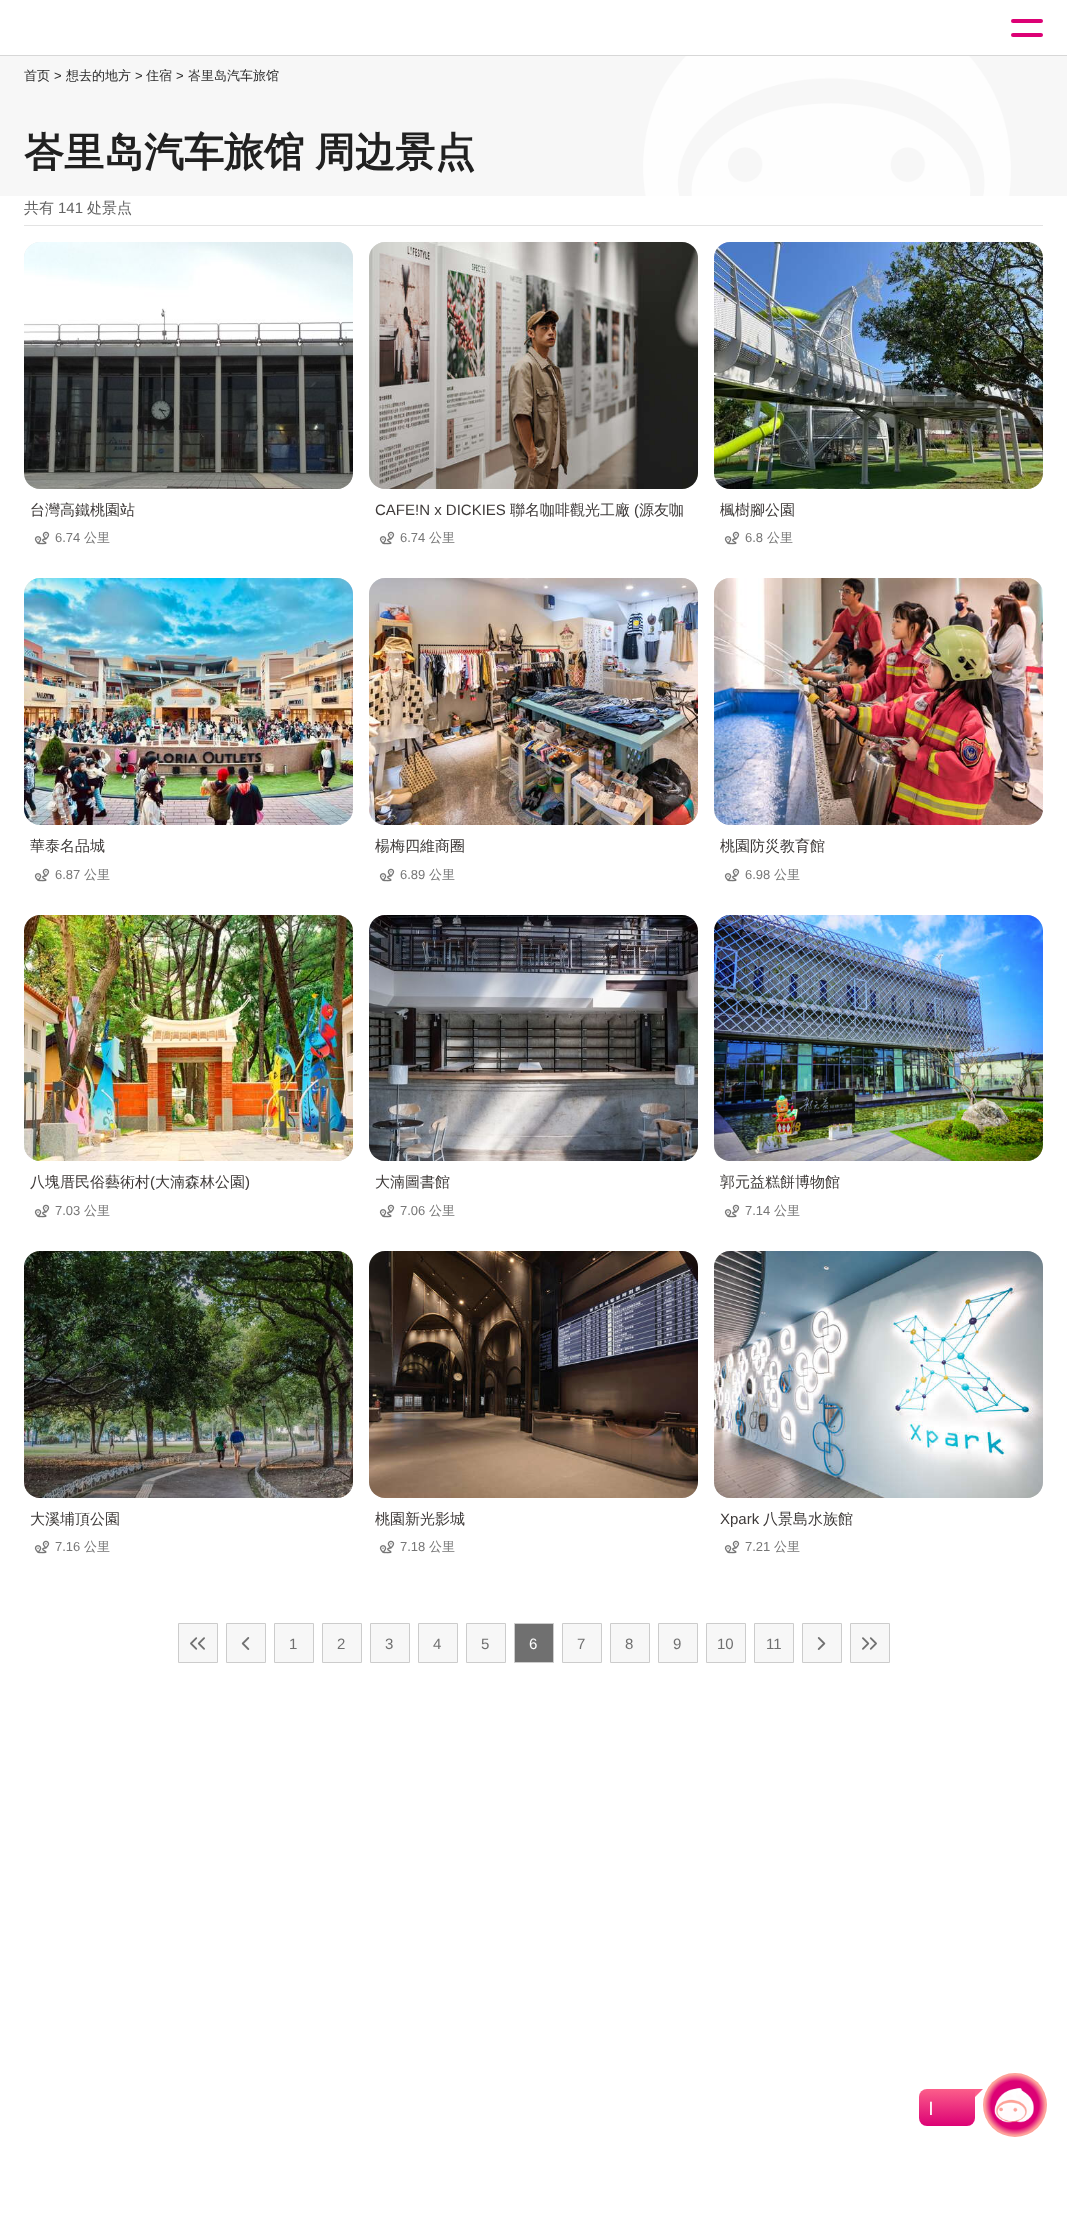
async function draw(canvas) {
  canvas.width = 1067
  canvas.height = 2233
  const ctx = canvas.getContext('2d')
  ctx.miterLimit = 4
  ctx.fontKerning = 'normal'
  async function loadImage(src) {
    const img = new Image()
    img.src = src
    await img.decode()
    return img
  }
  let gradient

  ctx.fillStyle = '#fff'
  ctx.fillRect(0, 0, 1067, 2233)
  ctx.fillStyle = '#dc0175'
  ctx.beginPath()
  ctx.roundRect(1011, 19, 32, 4, 2)
  ctx.fill()
  ctx.beginPath()
  ctx.roundRect(1011, 33, 32, 4, 2)
  ctx.fill()
  ctx.fillStyle = '#d7d7d7'
  ctx.fillRect(0, 55, 1067, 1)
  ctx.fillStyle = '#f7f7f7'
  ctx.fillRect(0, 56, 1067, 140)
  ctx.font = '500 13px WenQuanYi Zen Hei'
  ctx.fillStyle = '#2a2a2a'
  ctx.fillText('首页', 24, 80)
  ctx.font = '13px Liberation Sans'
  ctx.fillText('>', 54, 80)
  ctx.font = '500 13px WenQuanYi Zen Hei'
  ctx.fillText('想去的地方', 66, 80)
  ctx.font = '13px Liberation Sans'
  ctx.fillText('>', 135, 80)
  ctx.font = '500 13px WenQuanYi Zen Hei'
  ctx.fillText('住宿', 146, 80)
  ctx.font = '13px Liberation Sans'
  ctx.fillText('>', 176, 80)
  ctx.font = '500 13px WenQuanYi Zen Hei'
  ctx.fillText('峇里岛汽车旅馆', 188, 80)
  ctx.drawImage(await loadImage('image0.png'), 643, 56, 368, 140)
  ctx.wordSpacing = '-1px'
  ctx.font = 'bold 40px WenQuanYi Zen Hei'
  ctx.fillStyle = '#212121'
  ctx.fillText('峇里岛汽车旅馆 周边景点', 24, 166)
  ctx.fillStyle = '#e3e3e3'
  ctx.fillRect(24, 225, 1019, 1)
  ctx.wordSpacing = '0px'
  ctx.font = '500 15px WenQuanYi Zen Hei'
  ctx.fillStyle = '#626262'
  ctx.fillText('共有', 24, 213)
  ctx.font = '15px Liberation Sans'
  ctx.fillText('141', 58, 213)
  ctx.font = '500 15px WenQuanYi Zen Hei'
  ctx.fillText('处景点', 87, 213)
  ctx.fillStyle = '#e6e6e6'
  ctx.beginPath()
  ctx.roundRect(24, 242, 329, 247, 16)
  ctx.fill()
  ctx.drawImage(await loadImage('image1.png'), 24, 242, 329, 247)
  ctx.fillStyle = '#3e3a39'
  ctx.fillText('台灣高鐵桃園站', 30, 515)
  ctx.drawImage(await loadImage('image2.png'), 34, 531, 16, 14)
  ctx.font = '13px Liberation Sans'
  ctx.fillStyle = '#767676'
  ctx.fillText('6.74', 55, 542)
  ctx.font = '500 13px WenQuanYi Zen Hei'
  ctx.fillText('公里', 84, 542)
  ctx.fillStyle = '#e6e6e6'
  ctx.beginPath()
  ctx.roundRect(369, 242, 329, 247, 16)
  ctx.fill()
  ctx.drawImage(await loadImage('image3.png'), 369, 242, 329, 247)
  ctx.font = '15px Liberation Sans'
  ctx.fillStyle = '#3e3a39'
  ctx.fillText('CAFE!N x DICKIES', 375, 515)
  ctx.font = '500 15px WenQuanYi Zen Hei'
  ctx.fillText('聯名咖啡觀光工廠', 510, 515)
  ctx.font = '15px Liberation Sans'
  ctx.fillText('(', 634, 515)
  ctx.font = '500 15px WenQuanYi Zen Hei'
  ctx.fillText('源友咖', 639, 515)
  ctx.drawImage(await loadImage('image2.png'), 379, 531, 16, 14)
  ctx.font = '13px Liberation Sans'
  ctx.fillStyle = '#767676'
  ctx.fillText('6.74', 400, 542)
  ctx.font = '500 13px WenQuanYi Zen Hei'
  ctx.fillText('公里', 429, 542)
  ctx.fillStyle = '#e6e6e6'
  ctx.beginPath()
  ctx.roundRect(714, 242, 329, 247, 16)
  ctx.fill()
  ctx.drawImage(await loadImage('image4.png'), 714, 242, 329, 247)
  ctx.font = '500 15px WenQuanYi Zen Hei'
  ctx.fillStyle = '#3e3a39'
  ctx.fillText('楓樹腳公園', 720, 515)
  ctx.drawImage(await loadImage('image2.png'), 724, 531, 16, 14)
  ctx.font = '13px Liberation Sans'
  ctx.fillStyle = '#767676'
  ctx.fillText('6.8', 745, 542)
  ctx.font = '500 13px WenQuanYi Zen Hei'
  ctx.fillText('公里', 767, 542)
  ctx.fillStyle = '#e6e6e6'
  ctx.beginPath()
  ctx.roundRect(24, 578, 329, 247, 16)
  ctx.fill()
  ctx.drawImage(await loadImage('image5.png'), 24, 578, 329, 247)
  ctx.font = '500 15px WenQuanYi Zen Hei'
  ctx.fillStyle = '#3e3a39'
  ctx.fillText('華泰名品城', 30, 851)
  ctx.drawImage(await loadImage('image2.png'), 34, 868, 16, 14)
  ctx.font = '13px Liberation Sans'
  ctx.fillStyle = '#767676'
  ctx.fillText('6.87', 55, 879)
  ctx.font = '500 13px WenQuanYi Zen Hei'
  ctx.fillText('公里', 84, 879)
  ctx.fillStyle = '#e6e6e6'
  ctx.beginPath()
  ctx.roundRect(369, 578, 329, 247, 16)
  ctx.fill()
  ctx.drawImage(await loadImage('image6.png'), 369, 578, 329, 247)
  ctx.font = '500 15px WenQuanYi Zen Hei'
  ctx.fillStyle = '#3e3a39'
  ctx.fillText('楊梅四維商圈', 375, 851)
  ctx.drawImage(await loadImage('image2.png'), 379, 868, 16, 14)
  ctx.font = '13px Liberation Sans'
  ctx.fillStyle = '#767676'
  ctx.fillText('6.89', 400, 879)
  ctx.font = '500 13px WenQuanYi Zen Hei'
  ctx.fillText('公里', 429, 879)
  ctx.fillStyle = '#e6e6e6'
  ctx.beginPath()
  ctx.roundRect(714, 578, 329, 247, 16)
  ctx.fill()
  ctx.drawImage(await loadImage('image7.png'), 714, 578, 329, 247)
  ctx.font = '500 15px WenQuanYi Zen Hei'
  ctx.fillStyle = '#3e3a39'
  ctx.fillText('桃園防災教育館', 720, 851)
  ctx.drawImage(await loadImage('image2.png'), 724, 868, 16, 14)
  ctx.font = '13px Liberation Sans'
  ctx.fillStyle = '#767676'
  ctx.fillText('6.98', 745, 879)
  ctx.font = '500 13px WenQuanYi Zen Hei'
  ctx.fillText('公里', 774, 879)
  ctx.fillStyle = '#e6e6e6'
  ctx.beginPath()
  ctx.roundRect(24, 915, 329, 246, 16)
  ctx.fill()
  ctx.drawImage(await loadImage('image8.png'), 24, 915, 329, 246)
  ctx.font = '500 15px WenQuanYi Zen Hei'
  ctx.fillStyle = '#3e3a39'
  ctx.fillText('八塊厝民俗藝術村', 30, 1187)
  ctx.font = '15px Liberation Sans'
  ctx.fillText('(', 150, 1187)
  ctx.font = '500 15px WenQuanYi Zen Hei'
  ctx.fillText('大湳森林公園', 155, 1187)
  ctx.font = '15px Liberation Sans'
  ctx.fillText(')', 245, 1187)
  ctx.drawImage(await loadImage('image2.png'), 34, 1204, 16, 14)
  ctx.font = '13px Liberation Sans'
  ctx.fillStyle = '#767676'
  ctx.fillText('7.03', 55, 1215)
  ctx.font = '500 13px WenQuanYi Zen Hei'
  ctx.fillText('公里', 84, 1215)
  ctx.fillStyle = '#e6e6e6'
  ctx.beginPath()
  ctx.roundRect(369, 915, 329, 246, 16)
  ctx.fill()
  ctx.drawImage(await loadImage('image9.png'), 369, 915, 329, 246)
  ctx.font = '500 15px WenQuanYi Zen Hei'
  ctx.fillStyle = '#3e3a39'
  ctx.fillText('大湳圖書館', 375, 1187)
  ctx.drawImage(await loadImage('image2.png'), 379, 1204, 16, 14)
  ctx.font = '13px Liberation Sans'
  ctx.fillStyle = '#767676'
  ctx.fillText('7.06', 400, 1215)
  ctx.font = '500 13px WenQuanYi Zen Hei'
  ctx.fillText('公里', 429, 1215)
  ctx.fillStyle = '#e6e6e6'
  ctx.beginPath()
  ctx.roundRect(714, 915, 329, 246, 16)
  ctx.fill()
  ctx.drawImage(await loadImage('image10.png'), 714, 915, 329, 246)
  ctx.font = '500 15px WenQuanYi Zen Hei'
  ctx.fillStyle = '#3e3a39'
  ctx.fillText('郭元益糕餅博物館', 720, 1187)
  ctx.drawImage(await loadImage('image2.png'), 724, 1204, 16, 14)
  ctx.font = '13px Liberation Sans'
  ctx.fillStyle = '#767676'
  ctx.fillText('7.14', 745, 1215)
  ctx.font = '500 13px WenQuanYi Zen Hei'
  ctx.fillText('公里', 774, 1215)
  ctx.fillStyle = '#e6e6e6'
  ctx.beginPath()
  ctx.roundRect(24, 1251, 329, 247, 16)
  ctx.fill()
  ctx.drawImage(await loadImage('image11.png'), 24, 1251, 329, 247)
  ctx.font = '500 15px WenQuanYi Zen Hei'
  ctx.fillStyle = '#3e3a39'
  ctx.fillText('大溪埔頂公園', 30, 1524)
  ctx.drawImage(await loadImage('image2.png'), 34, 1540, 16, 14)
  ctx.font = '13px Liberation Sans'
  ctx.fillStyle = '#767676'
  ctx.fillText('7.16', 55, 1551)
  ctx.font = '500 13px WenQuanYi Zen Hei'
  ctx.fillText('公里', 84, 1551)
  ctx.fillStyle = '#e6e6e6'
  ctx.beginPath()
  ctx.roundRect(369, 1251, 329, 247, 16)
  ctx.fill()
  ctx.drawImage(await loadImage('image12.png'), 369, 1251, 329, 247)
  ctx.font = '500 15px WenQuanYi Zen Hei'
  ctx.fillStyle = '#3e3a39'
  ctx.fillText('桃園新光影城', 375, 1524)
  ctx.drawImage(await loadImage('image2.png'), 379, 1540, 16, 14)
  ctx.font = '13px Liberation Sans'
  ctx.fillStyle = '#767676'
  ctx.fillText('7.18', 400, 1551)
  ctx.font = '500 13px WenQuanYi Zen Hei'
  ctx.fillText('公里', 429, 1551)
  ctx.fillStyle = '#e6e6e6'
  ctx.beginPath()
  ctx.roundRect(714, 1251, 329, 247, 16)
  ctx.fill()
  ctx.drawImage(await loadImage('image13.png'), 714, 1251, 329, 247)
  ctx.font = '15px Liberation Sans'
  ctx.fillStyle = '#3e3a39'
  ctx.fillText('Xpark', 720, 1524)
  ctx.font = '500 15px WenQuanYi Zen Hei'
  ctx.fillText('八景島水族館', 763, 1524)
  ctx.drawImage(await loadImage('image2.png'), 724, 1540, 16, 14)
  ctx.font = '13px Liberation Sans'
  ctx.fillStyle = '#767676'
  ctx.fillText('7.21', 745, 1551)
  ctx.font = '500 13px WenQuanYi Zen Hei'
  ctx.fillText('公里', 774, 1551)
  ctx.fillStyle = '#f7f7f7'
  ctx.beginPath()
  ctx.rect(178.5, 1623.5, 39, 39)
  ctx.fill()
  ctx.strokeStyle = '#ccc'
  ctx.stroke()
  ctx.drawImage(await loadImage('image14.png'), 190, 1637, 15, 13)
  ctx.beginPath()
  ctx.rect(226.5, 1623.5, 39, 39)
  ctx.fill()
  ctx.stroke()
  ctx.drawImage(await loadImage('image15.png'), 241, 1637, 9, 13)
  ctx.beginPath()
  ctx.rect(274.5, 1623.5, 39, 39)
  ctx.fill()
  ctx.stroke()
  ctx.font = '15px Liberation Sans'
  ctx.fillStyle = '#707070'
  ctx.fillText('1', 289, 1649)
  ctx.fillStyle = '#f7f7f7'
  ctx.beginPath()
  ctx.rect(322.5, 1623.5, 39, 39)
  ctx.fill()
  ctx.stroke()
  ctx.fillStyle = '#707070'
  ctx.fillText('2', 337, 1649)
  ctx.fillStyle = '#f7f7f7'
  ctx.beginPath()
  ctx.rect(370.5, 1623.5, 39, 39)
  ctx.fill()
  ctx.stroke()
  ctx.fillStyle = '#707070'
  ctx.fillText('3', 385, 1649)
  ctx.fillStyle = '#f7f7f7'
  ctx.beginPath()
  ctx.rect(418.5, 1623.5, 39, 39)
  ctx.fill()
  ctx.stroke()
  ctx.fillStyle = '#707070'
  ctx.fillText('4', 433, 1649)
  ctx.fillStyle = '#f7f7f7'
  ctx.beginPath()
  ctx.rect(466.5, 1623.5, 39, 39)
  ctx.fill()
  ctx.stroke()
  ctx.fillStyle = '#707070'
  ctx.fillText('5', 481, 1649)
  ctx.beginPath()
  ctx.rect(514.5, 1623.5, 39, 39)
  ctx.fill()
  ctx.stroke()
  ctx.fillStyle = '#fff'
  ctx.fillText('6', 529, 1649)
  ctx.fillStyle = '#f7f7f7'
  ctx.beginPath()
  ctx.rect(562.5, 1623.5, 39, 39)
  ctx.fill()
  ctx.stroke()
  ctx.fillStyle = '#707070'
  ctx.fillText('7', 577, 1649)
  ctx.fillStyle = '#f7f7f7'
  ctx.beginPath()
  ctx.rect(610.5, 1623.5, 39, 39)
  ctx.fill()
  ctx.stroke()
  ctx.fillStyle = '#707070'
  ctx.fillText('8', 625, 1649)
  ctx.fillStyle = '#f7f7f7'
  ctx.beginPath()
  ctx.rect(658.5, 1623.5, 39, 39)
  ctx.fill()
  ctx.stroke()
  ctx.fillStyle = '#707070'
  ctx.fillText('9', 673, 1649)
  ctx.fillStyle = '#f7f7f7'
  ctx.beginPath()
  ctx.rect(706.5, 1623.5, 39, 39)
  ctx.fill()
  ctx.stroke()
  ctx.fillStyle = '#707070'
  ctx.fillText('10', 717, 1649)
  ctx.fillStyle = '#f7f7f7'
  ctx.beginPath()
  ctx.rect(754.5, 1623.5, 39, 39)
  ctx.fill()
  ctx.stroke()
  ctx.fillStyle = '#707070'
  ctx.fillText('11', 766, 1649)
  ctx.fillStyle = '#f7f7f7'
  ctx.beginPath()
  ctx.rect(802.5, 1623.5, 39, 39)
  ctx.fill()
  ctx.stroke()
  ctx.drawImage(await loadImage('image16.png'), 817, 1637, 9, 13)
  ctx.beginPath()
  ctx.rect(850.5, 1623.5, 39, 39)
  ctx.fill()
  ctx.stroke()
  ctx.drawImage(await loadImage('image17.png'), 862, 1637, 15, 13)
  ctx.fillStyle = '#fc5e8a'
  ctx.beginPath()
  ctx.moveTo(983, 2089)
  ctx.lineTo(975, 2089)
  ctx.lineTo(975, 2097)
  ctx.closePath()
  ctx.fill()
  gradient = ctx.createLinearGradient(947, 2089, 947, 2126)
  gradient.addColorStop(0, '#fc5e8a')
  gradient.addColorStop(1, '#dc0175')
  ctx.fillStyle = gradient
  ctx.beginPath()
  ctx.roundRect(919, 2089, 56, 37, [8, 0, 8, 8])
  ctx.fill()
  ctx.font = 'bold 14px Liberation Sans'
  ctx.fillStyle = '#fff'
  ctx.fillText('|', 929, 2112)
  gradient = ctx.createRadialGradient(1015, 2105, 0, 1015, 2105, 32)
  gradient.addColorStop(0.75, '#dc0175')
  gradient.addColorStop(0.95, '#fea29a')
  ctx.fillStyle = gradient
  ctx.beginPath()
  ctx.arc(1015, 2105, 32, 0, 2 * Math.PI)
  ctx.fill()
  ctx.drawImage(await loadImage('image18.png'), 994, 2088, 40, 35)
}

draw(document.querySelector('canvas'))
